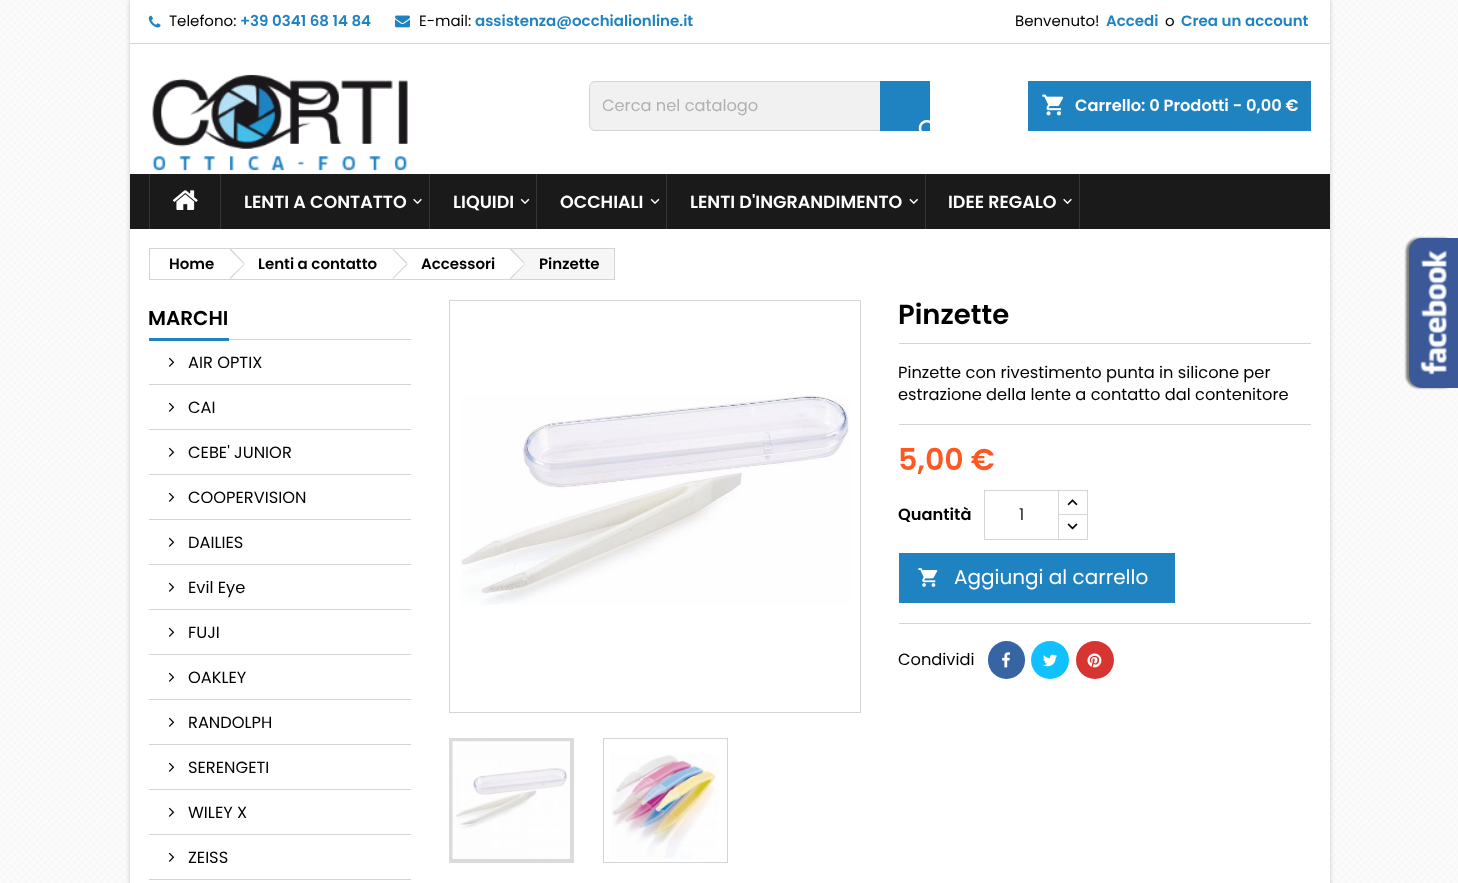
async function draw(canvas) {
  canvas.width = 1458
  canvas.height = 883
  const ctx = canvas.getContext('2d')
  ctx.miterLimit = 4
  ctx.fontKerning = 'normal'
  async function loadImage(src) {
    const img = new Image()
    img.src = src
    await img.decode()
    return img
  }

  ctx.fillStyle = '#fff'
  ctx.fillRect(0, 0, 1458, 883)
  ctx.drawImage(await loadImage('image0.png'), 0, 0, 1458, 883)
  ctx.fillStyle = '#00000033'
  ctx.filter = 'blur(2.5px)'
  ctx.beginPath()
  ctx.rect(130, 0, 1200, 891)
  ctx.fill()
  ctx.filter = 'none'
  ctx.fillStyle = '#fff'
  ctx.fillRect(130, 0, 1200, 883)
  ctx.fillStyle = '#d6d4d4'
  ctx.fillRect(130, 43, 1200, 1)
  ctx.drawImage(await loadImage('image1.png'), 148, 15, 13, 13)
  ctx.font = '15px Poppins'
  ctx.fillStyle = '#000'
  ctx.fillText('Telefono:', 169, 26)
  ctx.font = '600 15px Poppins'
  ctx.fillStyle = '#2083c1'
  ctx.fillText('+39 0341 68 14 84', 240, 26)
  ctx.drawImage(await loadImage('image2.png'), 395, 15, 15, 13)
  ctx.font = '15px Poppins'
  ctx.fillStyle = '#000'
  ctx.fillText('E-mail:', 419, 26)
  ctx.font = '600 15px Poppins'
  ctx.fillStyle = '#2083c1'
  ctx.fillText('assistenza@occhialionline.it', 475, 26)
  ctx.font = '15px Poppins'
  ctx.fillStyle = '#000'
  ctx.fillText('Benvenuto!', 1015, 26)
  ctx.font = '600 15px Poppins'
  ctx.fillStyle = '#2083c1'
  ctx.fillText('Accedi', 1106, 26)
  ctx.font = '15px Poppins'
  ctx.fillStyle = '#000'
  ctx.fillText('o', 1165, 26)
  ctx.font = '600 15px Poppins'
  ctx.fillStyle = '#2083c1'
  ctx.fillText('Crea un account', 1181, 26)
  ctx.drawImage(await loadImage('image3.png'), 152, 74, 256, 97)
  ctx.fillStyle = '#f1f1f1'
  ctx.beginPath()
  ctx.roundRect(589.5, 81.5, 340, 49, 5.5)
  ctx.fill()
  ctx.strokeStyle = '#d6d4d4'
  ctx.stroke()
  ctx.save()
  ctx.beginPath()
  ctx.rect(603, 94, 313, 25)
  ctx.clip()
  ctx.font = '16.25px Poppins'
  ctx.fillStyle = '#b1b1b1'
  ctx.fillText('Cerca nel catalogo', 602, 111)
  ctx.restore()
  ctx.fillStyle = '#2083c1'
  ctx.fillRect(880, 81, 50, 50)
  ctx.drawImage(await loadImage('image4.png'), 918, 120, 12, 11)
  ctx.fillRect(1028, 81, 283, 50)
  ctx.drawImage(await loadImage('image5.png'), 1042, 94, 22, 22)
  ctx.font = '600 16.25px Poppins'
  ctx.fillStyle = '#fff'
  ctx.fillText('Carrello: 0 Prodotti - 0,00 €', 1075, 111)
  ctx.fillStyle = '#1b1a1b'
  ctx.fillRect(130, 174, 1200, 55)
  ctx.fillStyle = '#363636'
  ctx.fillRect(149, 174, 1, 55)
  ctx.drawImage(await loadImage('image6.png'), 172, 190, 26, 20)
  ctx.fillRect(220, 174, 1, 55)
  ctx.font = '600 17.5px Poppins'
  ctx.fillStyle = '#fff'
  ctx.fillText('LENTI A CONTATTO', 244, 208)
  ctx.drawImage(await loadImage('image7.png'), 413, 198, 9, 7)
  ctx.fillStyle = '#363636'
  ctx.fillRect(429, 174, 1, 55)
  ctx.fillStyle = '#fff'
  ctx.fillText('LIQUIDI', 453, 208)
  ctx.drawImage(await loadImage('image8.png'), 520, 198, 10, 6)
  ctx.fillStyle = '#363636'
  ctx.fillRect(536, 174, 1, 55)
  ctx.fillStyle = '#fff'
  ctx.fillText('OCCHIALI', 560, 208)
  ctx.drawImage(await loadImage('image8.png'), 650, 198, 10, 6)
  ctx.fillStyle = '#363636'
  ctx.fillRect(666, 174, 1, 55)
  ctx.fillStyle = '#fff'
  ctx.fillText('LENTI D\'INGRANDIMENTO', 690, 208)
  ctx.drawImage(await loadImage('image9.png'), 909, 198, 9, 7)
  ctx.fillStyle = '#363636'
  ctx.fillRect(1079, 174, 1, 55)
  ctx.fillRect(925, 174, 1, 55)
  ctx.fillStyle = '#fff'
  ctx.fillText('IDEE REGALO', 948, 208)
  ctx.drawImage(await loadImage('image7.png'), 1063, 198, 9, 7)
  ctx.strokeRect(149.5, 248.5, 465, 31)
  ctx.font = '600 15px Poppins'
  ctx.fillStyle = '#000'
  ctx.fillText('Home', 169, 269)
  ctx.fillStyle = '#fff'
  ctx.beginPath()
  ctx.moveTo(231.5, 249.5)
  ctx.lineTo(244, 262)
  ctx.bezierCurveTo(245, 263, 245, 264.5, 244, 265.5)
  ctx.lineTo(231.5, 278)
  ctx.bezierCurveTo(230.5, 279, 229, 279, 228, 278)
  ctx.lineTo(215.5, 265.5)
  ctx.bezierCurveTo(214.5, 264.5, 214.5, 263, 215.5, 262)
  ctx.lineTo(228, 249.5)
  ctx.bezierCurveTo(229, 248.5, 230.5, 248.5, 231.5, 249.5)
  ctx.closePath()
  ctx.fill()
  ctx.fillStyle = '#d6d4d4'
  ctx.beginPath()
  ctx.moveTo(230.5, 248.5)
  ctx.lineTo(244.5, 263)
  ctx.lineTo(244, 264)
  ctx.lineTo(229.5, 249.5)
  ctx.closePath()
  ctx.moveTo(244, 264)
  ctx.lineTo(244.5, 264.5)
  ctx.lineTo(230.5, 279)
  ctx.lineTo(229.5, 278)
  ctx.closePath()
  ctx.fill()
  ctx.fillStyle = '#000'
  ctx.fillText('Lenti a contatto', 258, 269)
  ctx.fillStyle = '#fff'
  ctx.beginPath()
  ctx.moveTo(394, 249.5)
  ctx.lineTo(406.5, 262)
  ctx.bezierCurveTo(407.5, 263, 407.5, 264.5, 406.5, 265.5)
  ctx.lineTo(394, 278)
  ctx.bezierCurveTo(393, 279, 391.5, 279, 390.5, 278)
  ctx.lineTo(378, 265.5)
  ctx.bezierCurveTo(377, 264.5, 377, 263, 378, 262)
  ctx.lineTo(390.5, 249.5)
  ctx.bezierCurveTo(391.5, 248.5, 393, 248.5, 394, 249.5)
  ctx.closePath()
  ctx.fill()
  ctx.fillStyle = '#d6d4d4'
  ctx.beginPath()
  ctx.moveTo(393, 248.5)
  ctx.lineTo(407.5, 263)
  ctx.lineTo(406.5, 264)
  ctx.lineTo(392.5, 249.5)
  ctx.closePath()
  ctx.moveTo(406.5, 264)
  ctx.lineTo(407.5, 264.5)
  ctx.lineTo(393, 279)
  ctx.lineTo(392.5, 278)
  ctx.closePath()
  ctx.fill()
  ctx.fillStyle = '#000'
  ctx.fillText('Accessori', 421, 269)
  ctx.fillStyle = '#f6f6f6'
  ctx.fillRect(511, 249, 103, 30)
  ctx.fillStyle = '#fff'
  ctx.beginPath()
  ctx.moveTo(512, 249.5)
  ctx.lineTo(524.5, 262)
  ctx.bezierCurveTo(525.5, 263, 525.5, 264.5, 524.5, 265.5)
  ctx.lineTo(512, 278)
  ctx.bezierCurveTo(511, 279, 509.5, 279, 508.5, 278)
  ctx.lineTo(496, 265.5)
  ctx.bezierCurveTo(495, 264.5, 495, 263, 496, 262)
  ctx.lineTo(508.5, 249.5)
  ctx.bezierCurveTo(509.5, 248.5, 511, 248.5, 512, 249.5)
  ctx.closePath()
  ctx.fill()
  ctx.fillStyle = '#d6d4d4'
  ctx.beginPath()
  ctx.moveTo(511, 248.5)
  ctx.lineTo(525, 263)
  ctx.lineTo(524.5, 264)
  ctx.lineTo(510, 249.5)
  ctx.closePath()
  ctx.moveTo(524.5, 264)
  ctx.lineTo(525, 264.5)
  ctx.lineTo(511, 279)
  ctx.lineTo(510, 278)
  ctx.closePath()
  ctx.fill()
  ctx.fillStyle = '#000'
  ctx.fillText('Pinzette', 539, 269)
  ctx.fillStyle = '#d6d4d4'
  ctx.fillRect(229, 339, 182, 1)
  ctx.fillStyle = '#2083c1'
  ctx.fillRect(149, 338, 80, 3)
  ctx.font = '600 20px Poppins'
  ctx.fillStyle = '#000'
  ctx.fillText('MARCHI', 148, 325)
  ctx.fillStyle = '#d6d4d4'
  ctx.fillRect(149, 384, 262, 1)
  ctx.drawImage(await loadImage('image10.png'), 168, 357, 7, 10)
  ctx.font = '16.25px Poppins'
  ctx.fillStyle = '#000'
  ctx.fillText('AIR OPTIX', 188, 368)
  ctx.fillStyle = '#d6d4d4'
  ctx.fillRect(149, 429, 262, 1)
  ctx.drawImage(await loadImage('image10.png'), 168, 402, 7, 10)
  ctx.fillStyle = '#000'
  ctx.fillText('CAI', 188, 413)
  ctx.fillStyle = '#d6d4d4'
  ctx.fillRect(149, 474, 262, 1)
  ctx.drawImage(await loadImage('image10.png'), 168, 447, 7, 10)
  ctx.fillStyle = '#000'
  ctx.fillText('CEBE\' JUNIOR', 188, 458)
  ctx.fillStyle = '#d6d4d4'
  ctx.fillRect(149, 519, 262, 1)
  ctx.drawImage(await loadImage('image10.png'), 168, 492, 7, 10)
  ctx.fillStyle = '#000'
  ctx.fillText('COOPERVISION', 188, 503)
  ctx.fillStyle = '#d6d4d4'
  ctx.fillRect(149, 564, 262, 1)
  ctx.drawImage(await loadImage('image10.png'), 168, 537, 7, 10)
  ctx.fillStyle = '#000'
  ctx.fillText('DAILIES', 188, 548)
  ctx.fillStyle = '#d6d4d4'
  ctx.fillRect(149, 609, 262, 1)
  ctx.drawImage(await loadImage('image10.png'), 168, 582, 7, 10)
  ctx.fillStyle = '#000'
  ctx.fillText('Evil Eye', 188, 593)
  ctx.fillStyle = '#d6d4d4'
  ctx.fillRect(149, 654, 262, 1)
  ctx.drawImage(await loadImage('image10.png'), 168, 627, 7, 10)
  ctx.fillStyle = '#000'
  ctx.fillText('FUJI', 188, 638)
  ctx.fillStyle = '#d6d4d4'
  ctx.fillRect(149, 699, 262, 1)
  ctx.drawImage(await loadImage('image10.png'), 168, 672, 7, 10)
  ctx.fillStyle = '#000'
  ctx.fillText('OAKLEY', 188, 683)
  ctx.fillStyle = '#d6d4d4'
  ctx.fillRect(149, 744, 262, 1)
  ctx.drawImage(await loadImage('image10.png'), 168, 717, 7, 10)
  ctx.fillStyle = '#000'
  ctx.fillText('RANDOLPH', 188, 728)
  ctx.fillStyle = '#d6d4d4'
  ctx.fillRect(149, 789, 262, 1)
  ctx.drawImage(await loadImage('image10.png'), 168, 762, 7, 10)
  ctx.fillStyle = '#000'
  ctx.fillText('SERENGETI', 188, 773)
  ctx.fillStyle = '#d6d4d4'
  ctx.fillRect(149, 834, 262, 1)
  ctx.drawImage(await loadImage('image10.png'), 168, 807, 7, 10)
  ctx.fillStyle = '#000'
  ctx.fillText('WILEY X', 188, 818)
  ctx.fillStyle = '#d6d4d4'
  ctx.fillRect(149, 879, 262, 1)
  ctx.drawImage(await loadImage('image10.png'), 168, 852, 7, 10)
  ctx.fillStyle = '#000'
  ctx.fillText('ZEISS', 188, 863)
  ctx.strokeRect(449.5, 300.5, 411, 412)
  ctx.drawImage(await loadImage('image11.png'), 460, 395, 390, 210)
  ctx.strokeStyle = '#dbdbdb'
  ctx.lineWidth = 4
  ctx.strokeRect(451, 740, 121, 121)
  ctx.strokeStyle = '#d6d4d4'
  ctx.lineWidth = 1
  ctx.strokeRect(603.5, 738.5, 124, 124)
  ctx.drawImage(await loadImage('image12.png'), 452, 741, 118, 118)
  ctx.drawImage(await loadImage('image13.png'), 611, 754, 108, 105)
  ctx.font = '600 27.5px Poppins'
  ctx.fillText('Pinzette', 898, 324)
  ctx.fillStyle = '#d6d4d4'
  ctx.fillRect(899, 343, 412, 1)
  ctx.font = '16.25px Poppins'
  ctx.fillStyle = '#000'
  ctx.fillText('Pinzette con rivestimento punta in silicone per', 898, 378)
  ctx.fillText('estrazione della lente a contatto dal contenitore', 898, 400)
  ctx.fillStyle = '#d6d4d4'
  ctx.fillRect(899, 424, 412, 1)
  ctx.font = '600 30px Poppins'
  ctx.fillStyle = '#ff5722'
  ctx.fillText('5,00 €', 898, 470)
  ctx.font = '600 16.25px Poppins'
  ctx.fillStyle = '#000'
  ctx.fillText('Quantità', 898, 520)
  ctx.strokeRect(1058.5, 490.5, 29, 25)
  ctx.fillStyle = '#fff'
  ctx.fillRect(1059, 515, 28, 1)
  ctx.strokeRect(1058.5, 514.5, 29, 25)
  ctx.strokeRect(984.5, 490.5, 74, 49)
  ctx.font = '16.25px Poppins'
  ctx.fillStyle = '#232323'
  ctx.fillText('1', 1019, 520)
  ctx.drawImage(await loadImage('image14.png'), 1067, 499, 11, 7)
  ctx.drawImage(await loadImage('image15.png'), 1067, 523, 11, 7)
  ctx.fillStyle = '#2083c1'
  ctx.fillRect(899, 553, 276, 50)
  ctx.drawImage(await loadImage('image16.png'), 918, 568, 20, 19)
  ctx.font = '20px Poppins'
  ctx.fillStyle = '#fff'
  ctx.fillText('Aggiungi al carrello', 954, 584)
  ctx.fillStyle = '#d6d4d4'
  ctx.fillRect(899, 623, 412, 1)
  ctx.font = '16.25px Poppins'
  ctx.fillStyle = '#000'
  ctx.fillText('Condividi', 898, 665)
  ctx.fillStyle = '#3765a3'
  ctx.beginPath()
  ctx.roundRect(988, 641, 37, 38, 18.5)
  ctx.fill()
  ctx.drawImage(await loadImage('image17.png'), 1002, 652, 8, 16)
  ctx.fillStyle = '#11c1ff'
  ctx.beginPath()
  ctx.arc(1050, 660, 19, 0, 2 * Math.PI)
  ctx.fill()
  ctx.drawImage(await loadImage('image18.png'), 1043, 654, 14, 13)
  ctx.fillStyle = '#d73532'
  ctx.beginPath()
  ctx.arc(1095, 660, 19, 0, 2 * Math.PI)
  ctx.fill()
  ctx.drawImage(await loadImage('image19.png'), 1087, 653, 15, 15)
  ctx.fillStyle = '#00000080'
  ctx.filter = 'blur(1px)'
  ctx.beginPath()
  ctx.roundRect(1406, 238, 50, 150, 13)
  ctx.fill()
  ctx.filter = 'none'
  ctx.fillStyle = '#3b5998'
  ctx.beginPath()
  ctx.moveTo(1422, 238)
  ctx.lineTo(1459, 238)
  ctx.lineTo(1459, 388)
  ctx.lineTo(1422, 388)
  ctx.bezierCurveTo(1415, 388, 1409, 382, 1409, 375)
  ctx.lineTo(1409, 251)
  ctx.bezierCurveTo(1409, 244, 1415, 238, 1422, 238)
  ctx.closePath()
  ctx.fill()
  ctx.drawImage(await loadImage('image20.png'), 1420, 250, 27, 125)
}

draw(document.querySelector('canvas'))
